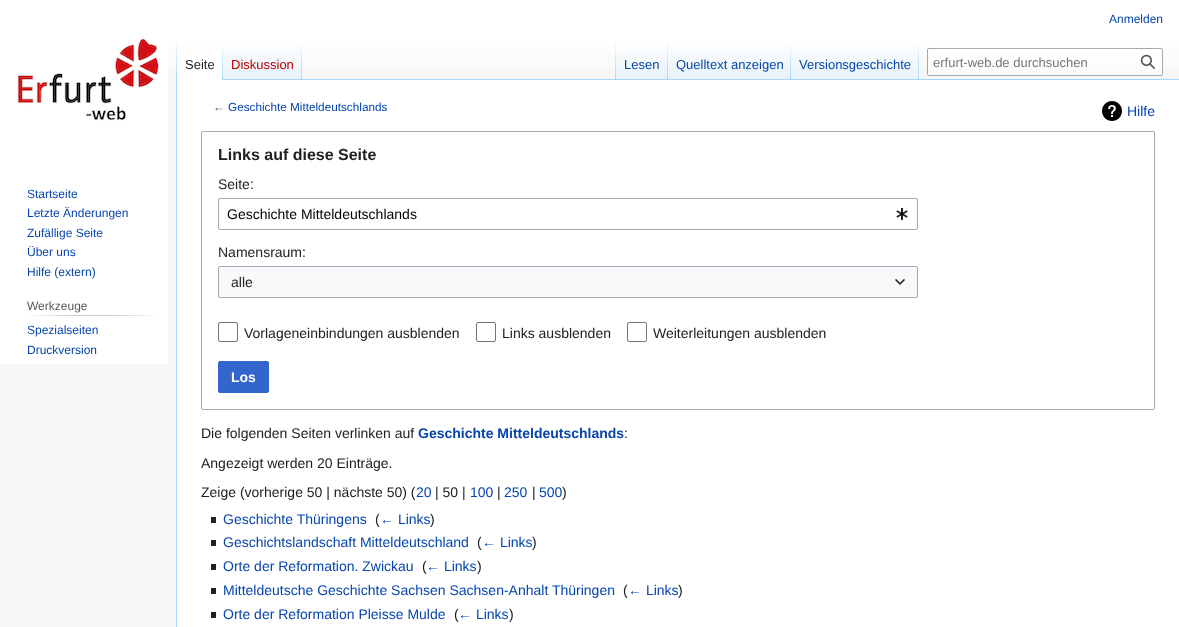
async function draw(canvas) {
  canvas.width = 1179
  canvas.height = 627
  const ctx = canvas.getContext('2d')
  ctx.miterLimit = 4
  ctx.fontKerning = 'normal'
  async function loadImage(src) {
    const img = new Image()
    img.src = src
    await img.decode()
    return img
  }
  let gradient

  ctx.fillStyle = '#f6f6f6'
  ctx.fillRect(0, 0, 1179, 627)
  gradient = ctx.createLinearGradient(590, 0, 590, 80)
  gradient.addColorStop(0.5, '#fff')
  gradient.addColorStop(1, '#f6f6f6')
  ctx.fillStyle = gradient
  ctx.fillRect(168, 0, 1011, 69)
  ctx.font = '12px Liberation Sans'
  ctx.fillStyle = '#0645ad'
  ctx.fillText('Anmelden', 1109, 23)
  ctx.fillStyle = '#a7d7f9'
  ctx.fillRect(176, 79, 1, 548)
  gradient = ctx.createLinearGradient(177, 40, 177, 80)
  gradient.addColorStop(0, '#a7d7f900')
  gradient.addColorStop(1, '#a7d7f9')
  ctx.fillStyle = gradient
  ctx.fillRect(176, 40, 1, 40)
  ctx.fillStyle = '#fff'
  ctx.fillRect(177, 51, 45, 29)
  gradient = ctx.createLinearGradient(223, 40, 223, 80)
  gradient.addColorStop(0, '#fff')
  gradient.addColorStop(1, '#a7d7f9')
  ctx.fillStyle = gradient
  ctx.fillRect(222, 40, 1, 40)
  ctx.font = '13px Liberation Sans'
  ctx.fillStyle = '#202122'
  ctx.fillText('Seite', 185, 69)
  gradient = ctx.createLinearGradient(263, 80, 263, 40)
  gradient.addColorStop(0, '#77c1f6')
  gradient.addColorStop(0.03, '#e8f2f8')
  gradient.addColorStop(1, '#fff')
  ctx.fillStyle = gradient
  ctx.fillRect(223, 46, 79, 34)
  gradient = ctx.createLinearGradient(302, 40, 302, 80)
  gradient.addColorStop(0, '#a7d7f900')
  gradient.addColorStop(1, '#a7d7f9')
  ctx.fillStyle = gradient
  ctx.fillRect(301, 40, 1, 40)
  ctx.fillStyle = '#ba0000'
  ctx.fillText('Diskussion', 231, 69)
  ctx.fillStyle = '#a7d7f9'
  ctx.fillRect(302, 79, 877, 1)
  gradient = ctx.createLinearGradient(616, 40, 616, 80)
  gradient.addColorStop(0, '#a7d7f900')
  gradient.addColorStop(1, '#a7d7f9')
  ctx.fillStyle = gradient
  ctx.fillRect(615, 40, 1, 40)
  gradient = ctx.createLinearGradient(642, 80, 642, 40)
  gradient.addColorStop(0, '#77c1f6')
  gradient.addColorStop(0.03, '#e8f2f8')
  gradient.addColorStop(1, '#fff')
  ctx.fillStyle = gradient
  ctx.fillRect(616, 46, 52, 33)
  gradient = ctx.createLinearGradient(668, 40, 668, 80)
  gradient.addColorStop(0, '#a7d7f900')
  gradient.addColorStop(1, '#a7d7f9')
  ctx.fillStyle = gradient
  ctx.fillRect(667, 40, 1, 40)
  ctx.fillStyle = '#0645ad'
  ctx.fillText('Lesen', 624, 69)
  gradient = ctx.createLinearGradient(730, 80, 730, 40)
  gradient.addColorStop(0, '#77c1f6')
  gradient.addColorStop(0.03, '#e8f2f8')
  gradient.addColorStop(1, '#fff')
  ctx.fillStyle = gradient
  ctx.fillRect(668, 46, 123, 33)
  gradient = ctx.createLinearGradient(791, 40, 791, 80)
  gradient.addColorStop(0, '#a7d7f900')
  gradient.addColorStop(1, '#a7d7f9')
  ctx.fillStyle = gradient
  ctx.fillRect(790, 40, 1, 40)
  ctx.fillStyle = '#0645ad'
  ctx.fillText('Quelltext anzeigen', 676, 69)
  gradient = ctx.createLinearGradient(855, 80, 855, 40)
  gradient.addColorStop(0, '#77c1f6')
  gradient.addColorStop(0.03, '#e8f2f8')
  gradient.addColorStop(1, '#fff')
  ctx.fillStyle = gradient
  ctx.fillRect(791, 46, 128, 33)
  gradient = ctx.createLinearGradient(919, 40, 919, 80)
  gradient.addColorStop(0, '#a7d7f900')
  gradient.addColorStop(1, '#a7d7f9')
  ctx.fillStyle = gradient
  ctx.fillRect(918, 40, 1, 40)
  ctx.fillStyle = '#0645ad'
  ctx.fillText('Versionsgeschichte', 799, 69)
  ctx.fillStyle = '#ffffff80'
  ctx.beginPath()
  ctx.roundRect(927.5, 48.5, 235, 27, 1.5)
  ctx.fill()
  ctx.strokeStyle = '#a2a9b1'
  ctx.stroke()
  ctx.fillStyle = '#72777d'
  ctx.fillText('erfurt-web.de durchsuchen', 933, 67)
  ctx.drawImage(await loadImage('image0.png'), 1140, 54, 15, 15)
  ctx.fillStyle = '#fff'
  ctx.fillRect(0, 0, 168, 364)
  ctx.drawImage(await loadImage('image1.png'), 17, 38, 142, 83)
  ctx.font = '12px Liberation Sans'
  ctx.fillStyle = '#0645ad'
  ctx.fillText('Startseite', 27, 198)
  ctx.fillText('Letzte Änderungen', 27, 217)
  ctx.fillText('Zufällige Seite', 27, 237)
  ctx.fillText('Über uns', 27, 256)
  ctx.fillText('Hilfe (extern)', 27, 276)
  gradient = ctx.createLinearGradient(27, 316, 158, 316)
  gradient.addColorStop(0, '#fff')
  gradient.addColorStop(0.33, '#c8ccd1')
  gradient.addColorStop(0.66, '#c8ccd1')
  gradient.addColorStop(1, '#fff')
  ctx.fillStyle = gradient
  ctx.fillRect(27, 315, 131, 1)
  ctx.fillStyle = '#54595d'
  ctx.fillText('Werkzeuge', 27, 310)
  ctx.fillStyle = '#0645ad'
  ctx.fillText('Spezialseiten', 27, 334)
  ctx.fillText('Druckversion', 27, 354)
  ctx.fillStyle = '#fff'
  ctx.fillRect(177, 80, 1002, 547)
  ctx.font = '11.75px Liberation Sans'
  ctx.fillStyle = '#54595d'
  ctx.fillText('←', 213, 111)
  ctx.fillStyle = '#0645ad'
  ctx.fillText('Geschichte Mitteldeutschlands', 228, 111)
  ctx.beginPath()
  ctx.roundRect(201.5, 131.5, 953, 278, 1.5)
  ctx.stroke()
  ctx.font = 'bold 16px Liberation Sans'
  ctx.fillStyle = '#202122'
  ctx.fillText('Links auf diese Seite', 218, 160)
  ctx.font = '14px Liberation Sans'
  ctx.fillText('Seite:', 218, 189)
  ctx.beginPath()
  ctx.roundRect(218.5, 198.5, 699, 31, 1.5)
  ctx.stroke()
  ctx.fillStyle = '#000'
  ctx.fillText('Geschichte Mitteldeutschlands', 227, 219)
  ctx.drawImage(await loadImage('image2.png'), 896, 208, 12, 12)
  ctx.fillStyle = '#202122'
  ctx.fillText('Namensraum:', 218, 257)
  ctx.fillStyle = '#f8f9fa'
  ctx.fillRect(218, 266, 700, 32)
  ctx.beginPath()
  ctx.roundRect(218.5, 266.5, 699, 31, 1.5)
  ctx.stroke()
  ctx.fillStyle = '#202122'
  ctx.fillText('alle', 231, 287)
  ctx.drawImage(await loadImage('image3.png'), 895, 279, 10, 6)
  ctx.beginPath()
  ctx.roundRect(218.5, 322.5, 19, 19, 1.5)
  ctx.strokeStyle = '#72777d'
  ctx.stroke()
  ctx.fillText('Vorlageneinbindungen ausblenden', 244, 338)
  ctx.beginPath()
  ctx.roundRect(476.5, 322.5, 19, 19, 1.5)
  ctx.stroke()
  ctx.fillText('Links ausblenden', 502, 338)
  ctx.beginPath()
  ctx.roundRect(627.5, 322.5, 19, 19, 1.5)
  ctx.stroke()
  ctx.fillText('Weiterleitungen ausblenden', 653, 338)
  ctx.fillStyle = '#36c'
  ctx.beginPath()
  ctx.roundRect(218.5, 361.5, 50, 31, 1.5)
  ctx.fill()
  ctx.strokeStyle = '#36c'
  ctx.stroke()
  ctx.font = 'bold 14px Liberation Sans'
  ctx.fillStyle = '#fff'
  ctx.fillText('Los', 231, 382)
  ctx.font = '14px Liberation Sans'
  ctx.fillStyle = '#202122'
  ctx.fillText('Die folgenden Seiten verlinken auf', 201, 438)
  ctx.font = 'bold 14px Liberation Sans'
  ctx.fillStyle = '#0645ad'
  ctx.fillText('Geschichte Mitteldeutschlands', 418, 438)
  ctx.font = '14px Liberation Sans'
  ctx.fillStyle = '#202122'
  ctx.fillText(':', 624, 438)
  ctx.fillText('Angezeigt werden 20 Einträge.', 201, 468)
  ctx.fillText('Zeige (vorherige 50 | nächste 50) (', 201, 497)
  ctx.fillStyle = '#0645ad'
  ctx.fillText('20', 416, 497)
  ctx.fillStyle = '#202122'
  ctx.fillText('| 50 |', 435, 497)
  ctx.fillStyle = '#0645ad'
  ctx.fillText('100', 470, 497)
  ctx.fillStyle = '#202122'
  ctx.fillText('|', 497, 497)
  ctx.fillStyle = '#0645ad'
  ctx.fillText('250', 504, 497)
  ctx.fillStyle = '#202122'
  ctx.fillText('|', 532, 497)
  ctx.fillStyle = '#0645ad'
  ctx.fillText('500', 539, 497)
  ctx.fillStyle = '#202122'
  ctx.fillText(')', 562, 497)
  ctx.fillRect(211, 517, 5, 6)
  ctx.fillStyle = '#0645ad'
  ctx.fillText('Geschichte Thüringens', 223, 524)
  ctx.fillStyle = '#202122'
  ctx.fillText('(', 375, 524)
  ctx.fillStyle = '#0645ad'
  ctx.fillText('← Links', 380, 524)
  ctx.fillStyle = '#202122'
  ctx.fillText(')', 430, 524)
  ctx.fillRect(211, 540, 5, 6)
  ctx.fillStyle = '#0645ad'
  ctx.fillText('Geschichtslandschaft Mitteldeutschland', 223, 547)
  ctx.fillStyle = '#202122'
  ctx.fillText('(', 477, 547)
  ctx.fillStyle = '#0645ad'
  ctx.fillText('← Links', 482, 547)
  ctx.fillStyle = '#202122'
  ctx.fillText(')', 532, 547)
  ctx.fillRect(211, 564, 5, 6)
  ctx.fillStyle = '#0645ad'
  ctx.fillText('Orte der Reformation. Zwickau', 223, 571)
  ctx.fillStyle = '#202122'
  ctx.fillText('(', 422, 571)
  ctx.fillStyle = '#0645ad'
  ctx.fillText('← Links', 426, 571)
  ctx.fillStyle = '#202122'
  ctx.fillText(')', 477, 571)
  ctx.fillRect(211, 588, 5, 6)
  ctx.fillStyle = '#0645ad'
  ctx.fillText('Mitteldeutsche Geschichte Sachsen Sachsen-Anhalt Thüringen', 223, 595)
  ctx.fillStyle = '#202122'
  ctx.fillText('(', 623, 595)
  ctx.fillStyle = '#0645ad'
  ctx.fillText('← Links', 628, 595)
  ctx.fillStyle = '#202122'
  ctx.fillText(')', 678, 595)
  ctx.fillRect(211, 612, 5, 6)
  ctx.fillStyle = '#0645ad'
  ctx.fillText('Orte der Reformation Pleisse Mulde', 223, 619)
  ctx.fillStyle = '#202122'
  ctx.fillText('(', 454, 619)
  ctx.fillStyle = '#0645ad'
  ctx.fillText('← Links', 458, 619)
  ctx.fillStyle = '#202122'
  ctx.fillText(')', 509, 619)
  ctx.drawImage(await loadImage('image4.png'), 1102, 101, 20, 20)
  ctx.fillStyle = '#0645ad'
  ctx.fillText('Hilfe', 1127, 116)
}

draw(document.querySelector('canvas'))
